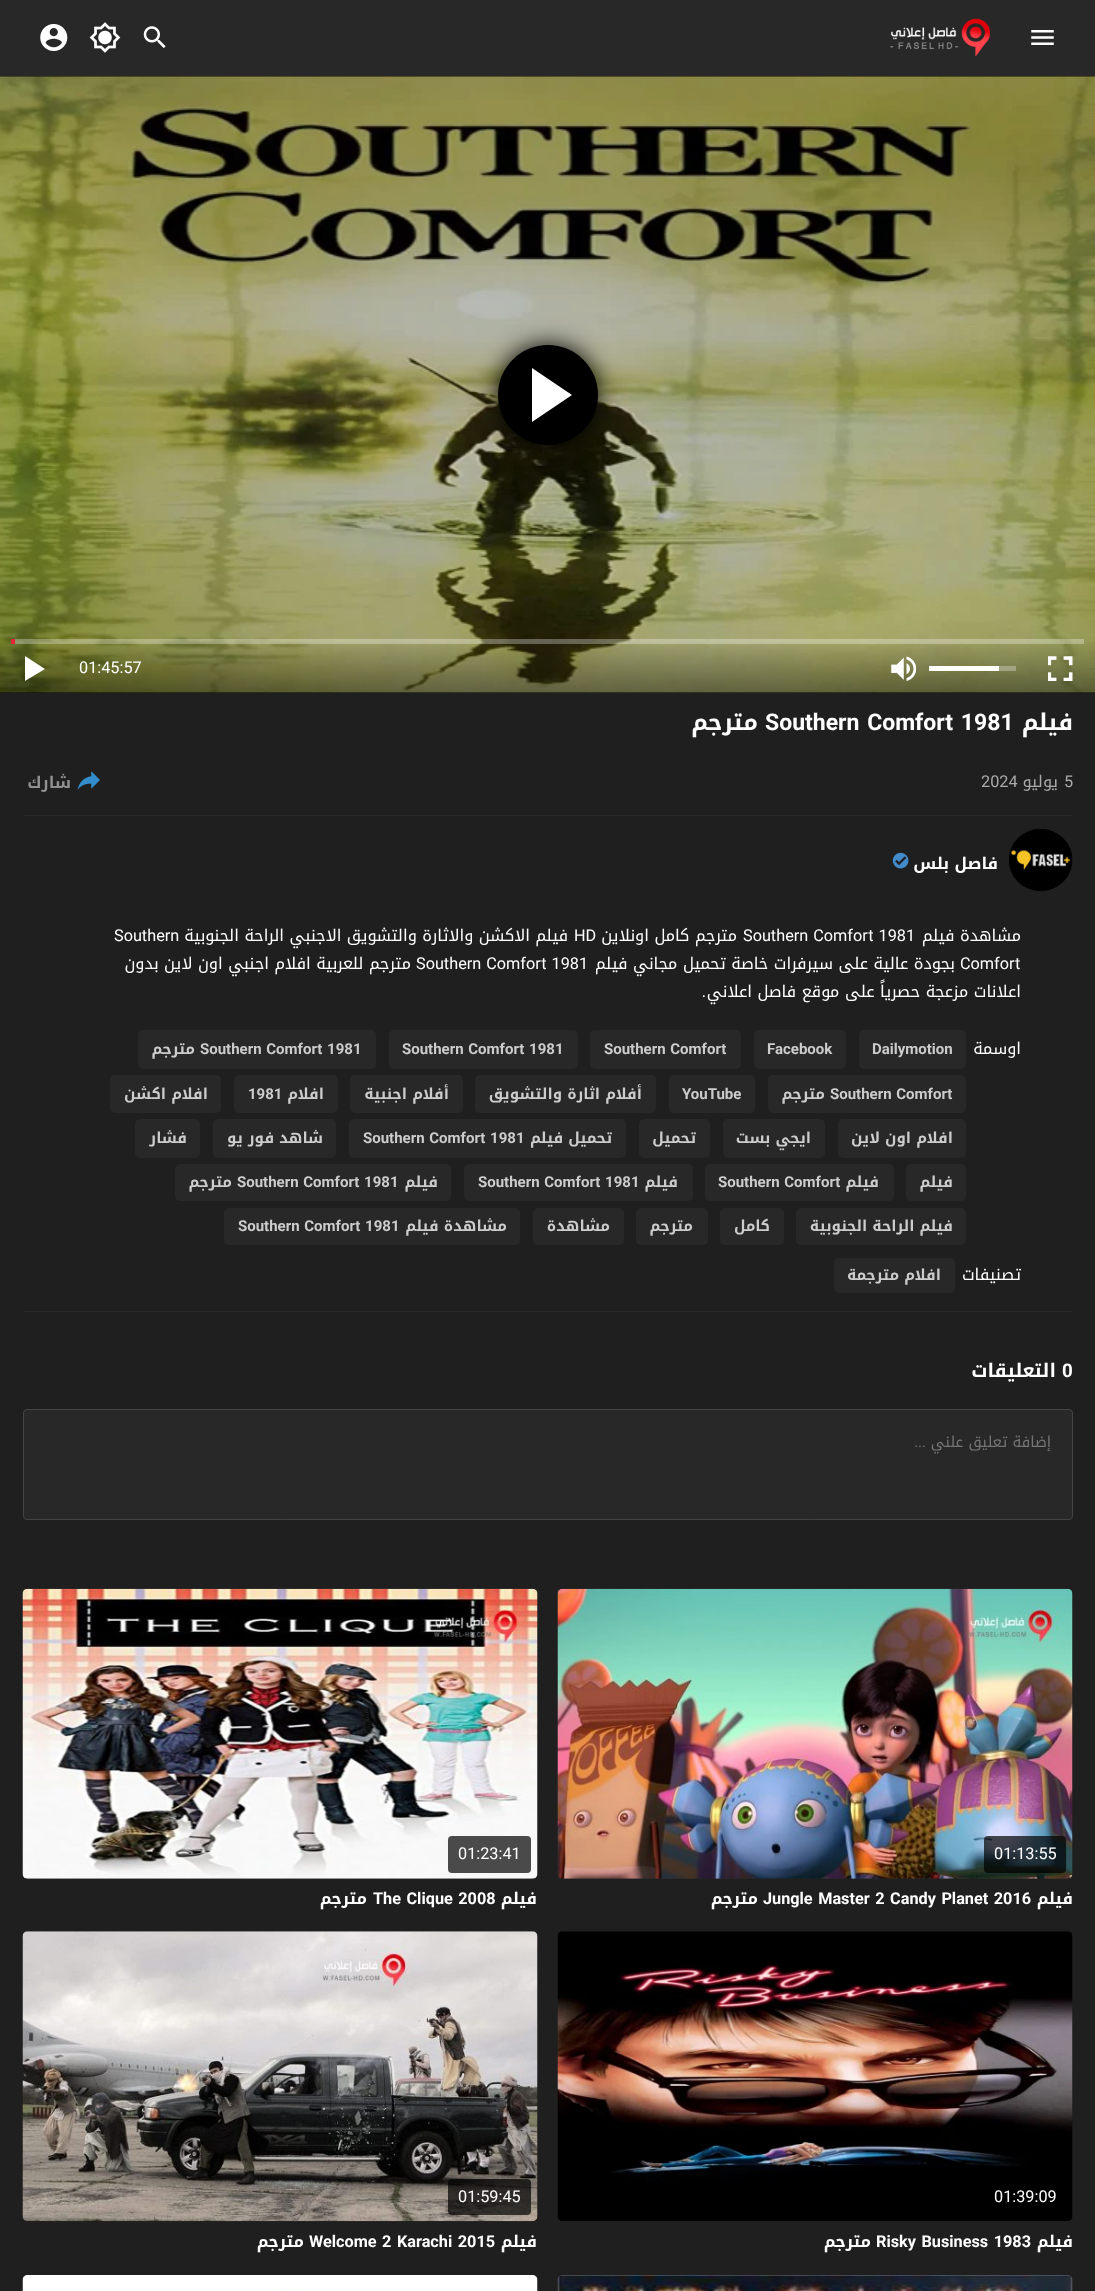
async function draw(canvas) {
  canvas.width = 1095
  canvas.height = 2291
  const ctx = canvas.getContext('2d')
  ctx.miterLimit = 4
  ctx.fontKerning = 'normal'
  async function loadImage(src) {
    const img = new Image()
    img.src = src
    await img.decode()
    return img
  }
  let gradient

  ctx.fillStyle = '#1f1f1f'
  ctx.fillRect(0, 0, 1095, 2291)
  ctx.fillStyle = '#282828'
  ctx.fillRect(0, 0, 1095, 76)
  ctx.drawImage(await loadImage('image0.png'), 1031, 30, 23, 15)
  ctx.drawImage(await loadImage('image1.png'), 890, 18, 100, 39)
  ctx.drawImage(await loadImage('image2.png'), 143, 26, 23, 22)
  ctx.drawImage(await loadImage('image3.png'), 89, 22, 32, 31)
  ctx.drawImage(await loadImage('image4.png'), 40, 24, 28, 27)
  ctx.fillStyle = '#000'
  ctx.fillRect(0, 76, 1095, 617)
  ctx.drawImage(await loadImage('image5.png'), 0, 76, 1095, 617)
  ctx.filter = 'blur(12.5px)'
  ctx.beginPath()
  ctx.roundRect(498, 345, 100, 100, 50)
  ctx.fill()
  ctx.filter = 'none'
  ctx.beginPath()
  ctx.arc(548, 395, 50, 0, 2 * Math.PI)
  ctx.fill()
  ctx.fillStyle = '#fff'
  ctx.beginPath()
  ctx.moveTo(532, 422)
  ctx.lineTo(532, 368)
  ctx.lineTo(572, 395)
  ctx.closePath()
  ctx.fill()
  gradient = ctx.createLinearGradient(548, 639, 548, 694)
  gradient.addColorStop(0, '#00000000')
  gradient.addColorStop(1, '#00000066')
  ctx.fillStyle = gradient
  ctx.fillRect(0, 642, 1095, 51)
  ctx.fillStyle = '#ffffff4d'
  ctx.fillRect(11, 639, 1073, 5)
  ctx.fillStyle = '#e82239'
  ctx.fillRect(11, 639, 4, 5)
  ctx.drawImage(await loadImage('image6.png'), 1048, 656, 25, 25)
  ctx.fillStyle = '#ffffff4d'
  ctx.fillRect(999, 666, 17, 5)
  ctx.fillStyle = '#fff'
  ctx.fillRect(929, 666, 70, 5)
  ctx.drawImage(await loadImage('image7.png'), 891, 656, 25, 25)
  ctx.font = '16.25px Roboto'
  ctx.fillText('01:45:57', 79, 673)
  ctx.beginPath()
  ctx.moveTo(25, 656)
  ctx.lineTo(25, 681)
  ctx.lineTo(45, 669)
  ctx.closePath()
  ctx.fill()
  ctx.direction = 'rtl'
  ctx.font = 'bold 23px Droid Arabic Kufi'
  ctx.fillText('فيلم', 1073, 730)
  ctx.wordSpacing = '2px'
  ctx.direction = 'ltr'
  ctx.font = 'bold 23px Roboto'
  ctx.fillText('Southern Comfort 1981', 765, 730)
  ctx.wordSpacing = '0px'
  ctx.direction = 'rtl'
  ctx.font = 'bold 23px Droid Arabic Kufi'
  ctx.fillText('مترجم', 758, 730)
  ctx.fillStyle = '#292929'
  ctx.fillRect(23, 815, 1050, 1)
  ctx.direction = 'ltr'
  ctx.font = '16.25px Roboto'
  ctx.fillStyle = '#aaa'
  ctx.fillText('5', 1064, 787)
  ctx.direction = 'rtl'
  ctx.font = '16.25px Droid Arabic Kufi'
  ctx.fillText('يوليو', 1058, 787)
  ctx.direction = 'ltr'
  ctx.font = '16.25px Roboto'
  ctx.fillText('2024', 981, 787)
  ctx.drawImage(await loadImage('image8.png'), 77, 771, 23, 19)
  ctx.direction = 'rtl'
  ctx.font = 'bold 16.25px Droid Arabic Kufi'
  ctx.fillStyle = '#909090'
  ctx.fillText('شارك', 71, 788)
  ctx.drawImage(await loadImage('image9.png'), 1009, 829, 64, 62)
  ctx.fillStyle = '#fff'
  ctx.fillText('فاصل بلس', 998, 869)
  ctx.drawImage(await loadImage('image10.png'), 892, 852, 17, 17)
  ctx.fillStyle = '#292929'
  ctx.fillRect(23, 1311, 1050, 1)
  ctx.font = '16.25px Droid Arabic Kufi'
  ctx.fillStyle = '#fff'
  ctx.fillText('مشاهدة فيلم', 1021, 941)
  ctx.wordSpacing = '1px'
  ctx.direction = 'ltr'
  ctx.font = '16.25px Roboto'
  ctx.fillText('Southern Comfort 1981', 743, 941)
  ctx.wordSpacing = '0px'
  ctx.direction = 'rtl'
  ctx.font = '16.25px Droid Arabic Kufi'
  ctx.fillText('مترجم كامل اونلاين', 737, 941)
  ctx.direction = 'ltr'
  ctx.font = '16.25px Roboto'
  ctx.fillText('HD', 574, 941)
  ctx.direction = 'rtl'
  ctx.font = '16.25px Droid Arabic Kufi'
  ctx.fillText('فيلم الاكشن والاثارة والتشويق الاجنبي الراحة الجنوبية', 568, 941)
  ctx.direction = 'ltr'
  ctx.font = '16.25px Roboto'
  ctx.fillText('Southern', 114, 941)
  ctx.fillText('Comfort', 960, 969)
  ctx.direction = 'rtl'
  ctx.font = '16.25px Droid Arabic Kufi'
  ctx.fillText('بجودة عالية على سيرفرات خاصة تحميل مجاني فيلم', 955, 969)
  ctx.wordSpacing = '1px'
  ctx.direction = 'ltr'
  ctx.font = '16.25px Roboto'
  ctx.fillText('Southern Comfort 1981', 416, 969)
  ctx.wordSpacing = '0px'
  ctx.direction = 'rtl'
  ctx.font = '16.25px Droid Arabic Kufi'
  ctx.fillText('مترجم للعربية افلام اجنبي اون لاين بدون', 411, 969)
  ctx.fillText('اعلانات مزعجة حصرياً على موقع فاصل اعلاني', 1021, 997)
  ctx.font = '16.25px Roboto'
  ctx.fillText('.', 706, 997)
  ctx.font = '16.25px Droid Arabic Kufi'
  ctx.fillText('اوسمة', 1021, 1054)
  ctx.fillStyle = '#282828'
  ctx.beginPath()
  ctx.roundRect(859, 1030, 107, 39, 5)
  ctx.fill()
  ctx.direction = 'ltr'
  ctx.font = 'bold 15px Roboto'
  ctx.fillStyle = '#ccc'
  ctx.fillText('Dailymotion', 872, 1054)
  ctx.fillStyle = '#282828'
  ctx.beginPath()
  ctx.roundRect(754, 1030, 92, 39, 5)
  ctx.fill()
  ctx.fillStyle = '#ccc'
  ctx.fillText('Facebook', 767, 1054)
  ctx.fillStyle = '#282828'
  ctx.beginPath()
  ctx.roundRect(590, 1030, 151, 39, 5)
  ctx.fill()
  ctx.wordSpacing = '1px'
  ctx.fillStyle = '#ccc'
  ctx.fillText('Southern Comfort', 604, 1054)
  ctx.fillStyle = '#282828'
  ctx.beginPath()
  ctx.roundRect(389, 1030, 189, 39, 5)
  ctx.fill()
  ctx.fillStyle = '#ccc'
  ctx.fillText('Southern Comfort 1981', 402, 1054)
  ctx.fillStyle = '#282828'
  ctx.beginPath()
  ctx.roundRect(138, 1030, 238, 39, 5)
  ctx.fill()
  ctx.fillStyle = '#ccc'
  ctx.fillText('Southern Comfort 1981', 200, 1054)
  ctx.wordSpacing = '0px'
  ctx.direction = 'rtl'
  ctx.font = 'bold 15px Droid Arabic Kufi'
  ctx.fillText('مترجم', 195, 1054)
  ctx.fillStyle = '#282828'
  ctx.beginPath()
  ctx.roundRect(768, 1075, 198, 38, 5)
  ctx.fill()
  ctx.wordSpacing = '1px'
  ctx.direction = 'ltr'
  ctx.font = 'bold 15px Roboto'
  ctx.fillStyle = '#ccc'
  ctx.fillText('Southern Comfort', 830, 1099)
  ctx.wordSpacing = '0px'
  ctx.direction = 'rtl'
  ctx.font = 'bold 15px Droid Arabic Kufi'
  ctx.fillText('مترجم', 825, 1099)
  ctx.fillStyle = '#282828'
  ctx.beginPath()
  ctx.roundRect(669, 1075, 86, 38, 5)
  ctx.fill()
  ctx.direction = 'ltr'
  ctx.font = 'bold 15px Roboto'
  ctx.fillStyle = '#ccc'
  ctx.fillText('YouTube', 682, 1099)
  ctx.fillStyle = '#282828'
  ctx.beginPath()
  ctx.roundRect(475, 1075, 181, 38, 5)
  ctx.fill()
  ctx.direction = 'rtl'
  ctx.font = 'bold 15px Droid Arabic Kufi'
  ctx.fillStyle = '#ccc'
  ctx.fillText('أفلام اثارة والتشويق', 642, 1099)
  ctx.fillStyle = '#282828'
  ctx.beginPath()
  ctx.roundRect(350, 1075, 113, 38, 5)
  ctx.fill()
  ctx.fillStyle = '#ccc'
  ctx.fillText('أفلام اجنبية', 449, 1099)
  ctx.fillStyle = '#282828'
  ctx.beginPath()
  ctx.roundRect(234, 1075, 104, 38, 5)
  ctx.fill()
  ctx.fillStyle = '#ccc'
  ctx.fillText('افلام', 324, 1099)
  ctx.direction = 'ltr'
  ctx.font = 'bold 15px Roboto'
  ctx.fillText('1981', 248, 1099)
  ctx.fillStyle = '#282828'
  ctx.beginPath()
  ctx.roundRect(110, 1075, 111, 38, 5)
  ctx.fill()
  ctx.direction = 'rtl'
  ctx.font = 'bold 15px Droid Arabic Kufi'
  ctx.fillStyle = '#ccc'
  ctx.fillText('افلام اكشن', 208, 1099)
  ctx.fillStyle = '#282828'
  ctx.beginPath()
  ctx.roundRect(838, 1119, 128, 39, 5)
  ctx.fill()
  ctx.fillStyle = '#ccc'
  ctx.fillText('افلام اون لاين', 953, 1143)
  ctx.fillStyle = '#282828'
  ctx.beginPath()
  ctx.roundRect(723, 1119, 102, 39, 5)
  ctx.fill()
  ctx.fillStyle = '#ccc'
  ctx.fillText('ايجي بست', 811, 1143)
  ctx.fillStyle = '#282828'
  ctx.beginPath()
  ctx.roundRect(639, 1119, 71, 39, 5)
  ctx.fill()
  ctx.fillStyle = '#ccc'
  ctx.fillText('تحميل', 696, 1143)
  ctx.fillStyle = '#282828'
  ctx.beginPath()
  ctx.roundRect(349, 1119, 277, 39, 5)
  ctx.fill()
  ctx.fillStyle = '#ccc'
  ctx.fillText('تحميل فيلم', 612, 1143)
  ctx.wordSpacing = '1px'
  ctx.direction = 'ltr'
  ctx.font = 'bold 15px Roboto'
  ctx.fillText('Southern Comfort 1981', 363, 1143)
  ctx.fillStyle = '#282828'
  ctx.beginPath()
  ctx.roundRect(213, 1119, 123, 39, 5)
  ctx.fill()
  ctx.wordSpacing = '0px'
  ctx.direction = 'rtl'
  ctx.font = 'bold 15px Droid Arabic Kufi'
  ctx.fillStyle = '#ccc'
  ctx.fillText('شاهد فور يو', 323, 1143)
  ctx.fillStyle = '#282828'
  ctx.beginPath()
  ctx.roundRect(135, 1119, 65, 39, 5)
  ctx.fill()
  ctx.fillStyle = '#ccc'
  ctx.fillText('فشار', 187, 1143)
  ctx.fillStyle = '#282828'
  ctx.beginPath()
  ctx.roundRect(906, 1164, 60, 37, 5)
  ctx.fill()
  ctx.fillStyle = '#ccc'
  ctx.fillText('فيلم', 953, 1187)
  ctx.fillStyle = '#282828'
  ctx.beginPath()
  ctx.roundRect(705, 1164, 189, 37, 5)
  ctx.fill()
  ctx.fillStyle = '#ccc'
  ctx.fillText('فيلم', 879, 1187)
  ctx.wordSpacing = '1px'
  ctx.direction = 'ltr'
  ctx.font = 'bold 15px Roboto'
  ctx.fillText('Southern Comfort', 718, 1187)
  ctx.fillStyle = '#282828'
  ctx.beginPath()
  ctx.roundRect(464, 1164, 229, 37, 5)
  ctx.fill()
  ctx.wordSpacing = '0px'
  ctx.direction = 'rtl'
  ctx.font = 'bold 15px Droid Arabic Kufi'
  ctx.fillStyle = '#ccc'
  ctx.fillText('فيلم', 678, 1187)
  ctx.wordSpacing = '1px'
  ctx.direction = 'ltr'
  ctx.font = 'bold 15px Roboto'
  ctx.fillText('Southern Comfort 1981', 478, 1187)
  ctx.fillStyle = '#282828'
  ctx.beginPath()
  ctx.roundRect(175, 1164, 276, 37, 5)
  ctx.fill()
  ctx.wordSpacing = '0px'
  ctx.direction = 'rtl'
  ctx.font = 'bold 15px Droid Arabic Kufi'
  ctx.fillStyle = '#ccc'
  ctx.fillText('فيلم', 438, 1187)
  ctx.wordSpacing = '1px'
  ctx.direction = 'ltr'
  ctx.font = 'bold 15px Roboto'
  ctx.fillText('Southern Comfort 1981', 237, 1187)
  ctx.wordSpacing = '0px'
  ctx.direction = 'rtl'
  ctx.font = 'bold 15px Droid Arabic Kufi'
  ctx.fillText('مترجم', 232, 1187)
  ctx.fillStyle = '#282828'
  ctx.beginPath()
  ctx.roundRect(796, 1208, 170, 37, 5)
  ctx.fill()
  ctx.fillStyle = '#ccc'
  ctx.fillText('فيلم الراحة الجنوبية', 953, 1231)
  ctx.fillStyle = '#282828'
  ctx.beginPath()
  ctx.roundRect(720, 1208, 64, 37, 5)
  ctx.fill()
  ctx.fillStyle = '#ccc'
  ctx.fillText('كامل', 770, 1231)
  ctx.fillStyle = '#282828'
  ctx.beginPath()
  ctx.roundRect(636, 1208, 72, 37, 5)
  ctx.fill()
  ctx.fillStyle = '#ccc'
  ctx.fillText('مترجم', 693, 1231)
  ctx.fillStyle = '#282828'
  ctx.beginPath()
  ctx.roundRect(533, 1208, 91, 37, 5)
  ctx.fill()
  ctx.fillStyle = '#ccc'
  ctx.fillText('مشاهدة', 610, 1231)
  ctx.fillStyle = '#282828'
  ctx.beginPath()
  ctx.roundRect(224, 1208, 296, 37, 5)
  ctx.fill()
  ctx.fillStyle = '#ccc'
  ctx.fillText('مشاهدة فيلم', 507, 1231)
  ctx.wordSpacing = '1px'
  ctx.direction = 'ltr'
  ctx.font = 'bold 15px Roboto'
  ctx.fillText('Southern Comfort 1981', 238, 1231)
  ctx.wordSpacing = '0px'
  ctx.direction = 'rtl'
  ctx.font = '16.25px Droid Arabic Kufi'
  ctx.fillStyle = '#fff'
  ctx.fillText('تصنيفات', 1021, 1280)
  ctx.fillStyle = '#282828'
  ctx.beginPath()
  ctx.roundRect(834, 1258, 121, 35, 5)
  ctx.fill()
  ctx.font = 'bold 15px Droid Arabic Kufi'
  ctx.fillStyle = '#ccc'
  ctx.fillText('افلام مترجمة', 941, 1280)
  ctx.direction = 'ltr'
  ctx.font = 'bold 18.75px Roboto'
  ctx.fillStyle = '#fff'
  ctx.fillText('0', 1062, 1377)
  ctx.direction = 'rtl'
  ctx.font = 'bold 18.75px Droid Arabic Kufi'
  ctx.fillText('التعليقات', 1056, 1377)
  ctx.fillStyle = '#282828'
  ctx.beginPath()
  ctx.roundRect(23.5, 1409.5, 1049, 110, 3.5)
  ctx.fill()
  ctx.strokeStyle = '#444'
  ctx.stroke()
  ctx.font = '15px Droid Arabic Kufi'
  ctx.fillStyle = '#757575'
  ctx.fillText('إضافة تعليق علني', 1051, 1447)
  ctx.font = '15px Roboto'
  ctx.fillText('...', 926, 1447)
  ctx.drawImage(await loadImage('image11.png'), 557, 1588, 516, 291)
  ctx.fillStyle = '#000000b3'
  ctx.beginPath()
  ctx.roundRect(984, 1836, 82, 37, 4)
  ctx.fill()
  ctx.direction = 'ltr'
  ctx.font = '16.25px Roboto'
  ctx.fillStyle = '#fff'
  ctx.fillText('01:13:55', 994, 1859)
  ctx.direction = 'rtl'
  ctx.font = 'bold 16.25px Droid Arabic Kufi'
  ctx.fillText('فيلم', 1073, 1904)
  ctx.wordSpacing = '1.5px'
  ctx.direction = 'ltr'
  ctx.font = 'bold 16.25px Roboto'
  ctx.fillText('Jungle Master 2 Candy Planet 2016', 763, 1904)
  ctx.wordSpacing = '0px'
  ctx.direction = 'rtl'
  ctx.font = 'bold 16.25px Droid Arabic Kufi'
  ctx.fillText('مترجم', 758, 1904)
  ctx.drawImage(await loadImage('image12.png'), 22, 1588, 516, 291)
  ctx.fillStyle = '#000000b3'
  ctx.beginPath()
  ctx.roundRect(448, 1836, 83, 37, 4)
  ctx.fill()
  ctx.direction = 'ltr'
  ctx.font = '16.25px Roboto'
  ctx.fillStyle = '#fff'
  ctx.fillText('01:23:41', 458, 1859)
  ctx.direction = 'rtl'
  ctx.font = 'bold 16.25px Droid Arabic Kufi'
  ctx.fillText('فيلم', 537, 1904)
  ctx.wordSpacing = '1.5px'
  ctx.direction = 'ltr'
  ctx.font = 'bold 16.25px Roboto'
  ctx.fillText('The Clique 2008', 373, 1904)
  ctx.wordSpacing = '0px'
  ctx.direction = 'rtl'
  ctx.font = 'bold 16.25px Droid Arabic Kufi'
  ctx.fillText('مترجم', 367, 1904)
  ctx.drawImage(await loadImage('image13.png'), 557, 1931, 516, 290)
  ctx.direction = 'ltr'
  ctx.font = '16.25px Roboto'
  ctx.fillText('01:39:09', 994, 2202)
  ctx.direction = 'rtl'
  ctx.font = 'bold 16.25px Droid Arabic Kufi'
  ctx.fillText('فيلم', 1073, 2247)
  ctx.wordSpacing = '1.5px'
  ctx.direction = 'ltr'
  ctx.font = 'bold 16.25px Roboto'
  ctx.fillText('Risky Business 1983', 876, 2247)
  ctx.wordSpacing = '0px'
  ctx.direction = 'rtl'
  ctx.font = 'bold 16.25px Droid Arabic Kufi'
  ctx.fillText('مترجم', 871, 2247)
  ctx.drawImage(await loadImage('image14.png'), 22, 1931, 516, 291)
  ctx.fillStyle = '#000000b3'
  ctx.beginPath()
  ctx.roundRect(448, 2179, 83, 36, 4)
  ctx.fill()
  ctx.direction = 'ltr'
  ctx.font = '16.25px Roboto'
  ctx.fillStyle = '#fff'
  ctx.fillText('01:59:45', 458, 2202)
  ctx.direction = 'rtl'
  ctx.font = 'bold 16.25px Droid Arabic Kufi'
  ctx.fillText('فيلم', 537, 2247)
  ctx.wordSpacing = '1.5px'
  ctx.direction = 'ltr'
  ctx.font = 'bold 16.25px Roboto'
  ctx.fillText('Welcome 2 Karachi 2015', 309, 2247)
  ctx.wordSpacing = '0px'
  ctx.direction = 'rtl'
  ctx.font = 'bold 16.25px Droid Arabic Kufi'
  ctx.fillText('مترجم', 304, 2247)
  ctx.drawImage(await loadImage('image15.png'), 557, 2275, 516, 16)
  ctx.drawImage(await loadImage('image16.png'), 22, 2275, 516, 16)
}

draw(document.querySelector('canvas'))
